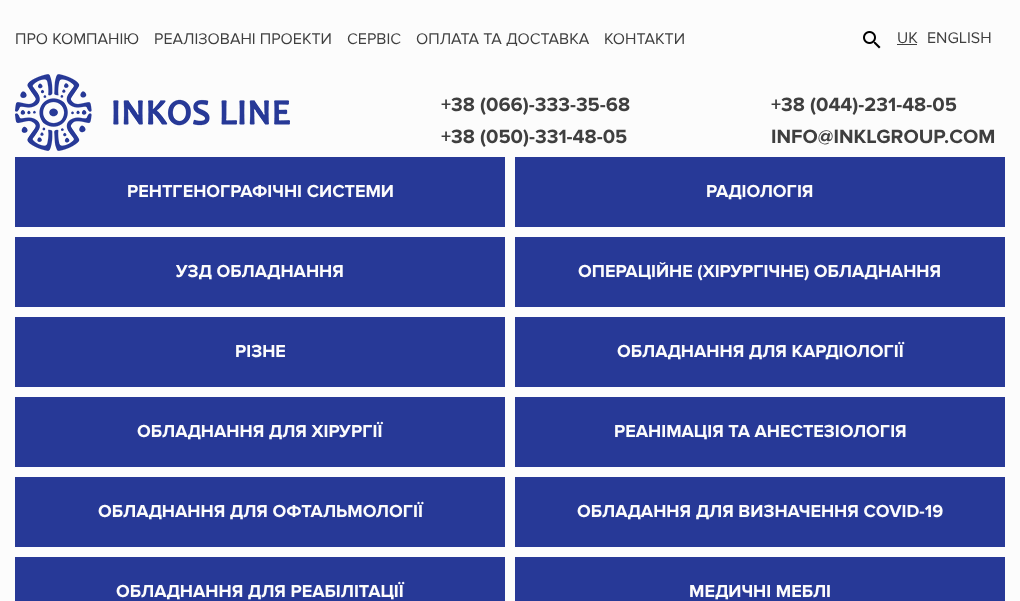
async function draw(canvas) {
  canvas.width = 1020
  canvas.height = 601
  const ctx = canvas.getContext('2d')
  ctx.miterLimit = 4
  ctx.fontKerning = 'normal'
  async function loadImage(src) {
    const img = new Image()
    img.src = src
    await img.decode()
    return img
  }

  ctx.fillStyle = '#fcfcfc'
  ctx.fillRect(0, 0, 1020, 601)
  ctx.font = '16px Proxima Nova'
  ctx.fillStyle = '#3f3f3f'
  ctx.fillText('ПРО КОМПАНІЮ', 15, 44)
  ctx.fillText('РЕАЛІЗОВАНІ ПРОЕКТИ', 154, 44)
  ctx.fillText('СЕРВІС', 347, 44)
  ctx.fillText('ОПЛАТА ТА ДОСТАВКА', 416, 44)
  ctx.fillText('КОНТАКТИ', 604, 44)
  ctx.drawImage(await loadImage('image0.png'), 863, 31, 18, 18)
  ctx.fillText('UK', 897, 43)
  ctx.fillRect(897, 44, 20, 1)
  ctx.fillText('ENGLISH', 927, 43)
  ctx.drawImage(await loadImage('image1.png'), 15, 74, 275, 77)
  ctx.font = 'bold 20px Proxima Nova'
  ctx.fillText('+38 (066)-333-35-68', 441, 111)
  ctx.fillText('+38 (050)-331-48-05', 441, 143)
  ctx.fillText('+38 (044)-231-48-05', 771, 111)
  ctx.fillText('INFO@INKLGROUP.COM', 771, 143)
  ctx.fillStyle = '#273997'
  ctx.fillRect(15, 157, 490, 70)
  ctx.font = 'bold 18px Proxima Nova'
  ctx.fillStyle = '#fcfcfc'
  ctx.fillText('РЕНТГЕНОГРАФІЧНІ СИСТЕМИ', 127, 197)
  ctx.fillStyle = '#273997'
  ctx.fillRect(515, 157, 490, 70)
  ctx.fillStyle = '#fcfcfc'
  ctx.fillText('РАДІОЛОГІЯ', 706, 197)
  ctx.fillStyle = '#273997'
  ctx.fillRect(15, 237, 490, 70)
  ctx.fillStyle = '#fcfcfc'
  ctx.fillText('УЗД ОБЛАДНАННЯ', 176, 277)
  ctx.fillStyle = '#273997'
  ctx.fillRect(515, 237, 490, 70)
  ctx.fillStyle = '#fcfcfc'
  ctx.fillText('ОПЕРАЦІЙНЕ (ХІРУРГІЧНЕ) ОБЛАДНАННЯ', 578, 277)
  ctx.fillStyle = '#273997'
  ctx.fillRect(15, 317, 490, 70)
  ctx.fillStyle = '#fcfcfc'
  ctx.fillText('РІЗНЕ', 235, 357)
  ctx.fillStyle = '#273997'
  ctx.fillRect(515, 317, 490, 70)
  ctx.fillStyle = '#fcfcfc'
  ctx.fillText('ОБЛАДНАННЯ ДЛЯ КАРДІОЛОГІЇ', 617, 357)
  ctx.fillStyle = '#273997'
  ctx.fillRect(15, 397, 490, 70)
  ctx.fillStyle = '#fcfcfc'
  ctx.fillText('ОБЛАДНАННЯ ДЛЯ ХІРУРГІЇ', 137, 437)
  ctx.fillStyle = '#273997'
  ctx.fillRect(515, 397, 490, 70)
  ctx.fillStyle = '#fcfcfc'
  ctx.fillText('РЕАНІМАЦІЯ ТА АНЕСТЕЗІОЛОГІЯ', 614, 437)
  ctx.fillStyle = '#273997'
  ctx.fillRect(15, 477, 490, 70)
  ctx.fillStyle = '#fcfcfc'
  ctx.fillText('ОБЛАДНАННЯ ДЛЯ ОФТАЛЬМОЛОГІЇ', 98, 517)
  ctx.fillStyle = '#273997'
  ctx.fillRect(515, 477, 490, 70)
  ctx.fillStyle = '#fcfcfc'
  ctx.fillText('ОБЛАДАННЯ ДЛЯ ВИЗНАЧЕННЯ COVID-19', 577, 517)
  ctx.fillStyle = '#273997'
  ctx.fillRect(15, 557, 490, 44)
  ctx.fillStyle = '#fcfcfc'
  ctx.fillText('ОБЛАДНАННЯ ДЛЯ РЕАБІЛІТАЦІЇ', 116, 597)
  ctx.fillStyle = '#273997'
  ctx.fillRect(515, 557, 490, 44)
  ctx.fillStyle = '#fcfcfc'
  ctx.fillText('МЕДИЧНІ МЕБЛІ', 689, 597)
}

draw(document.querySelector('canvas'))
